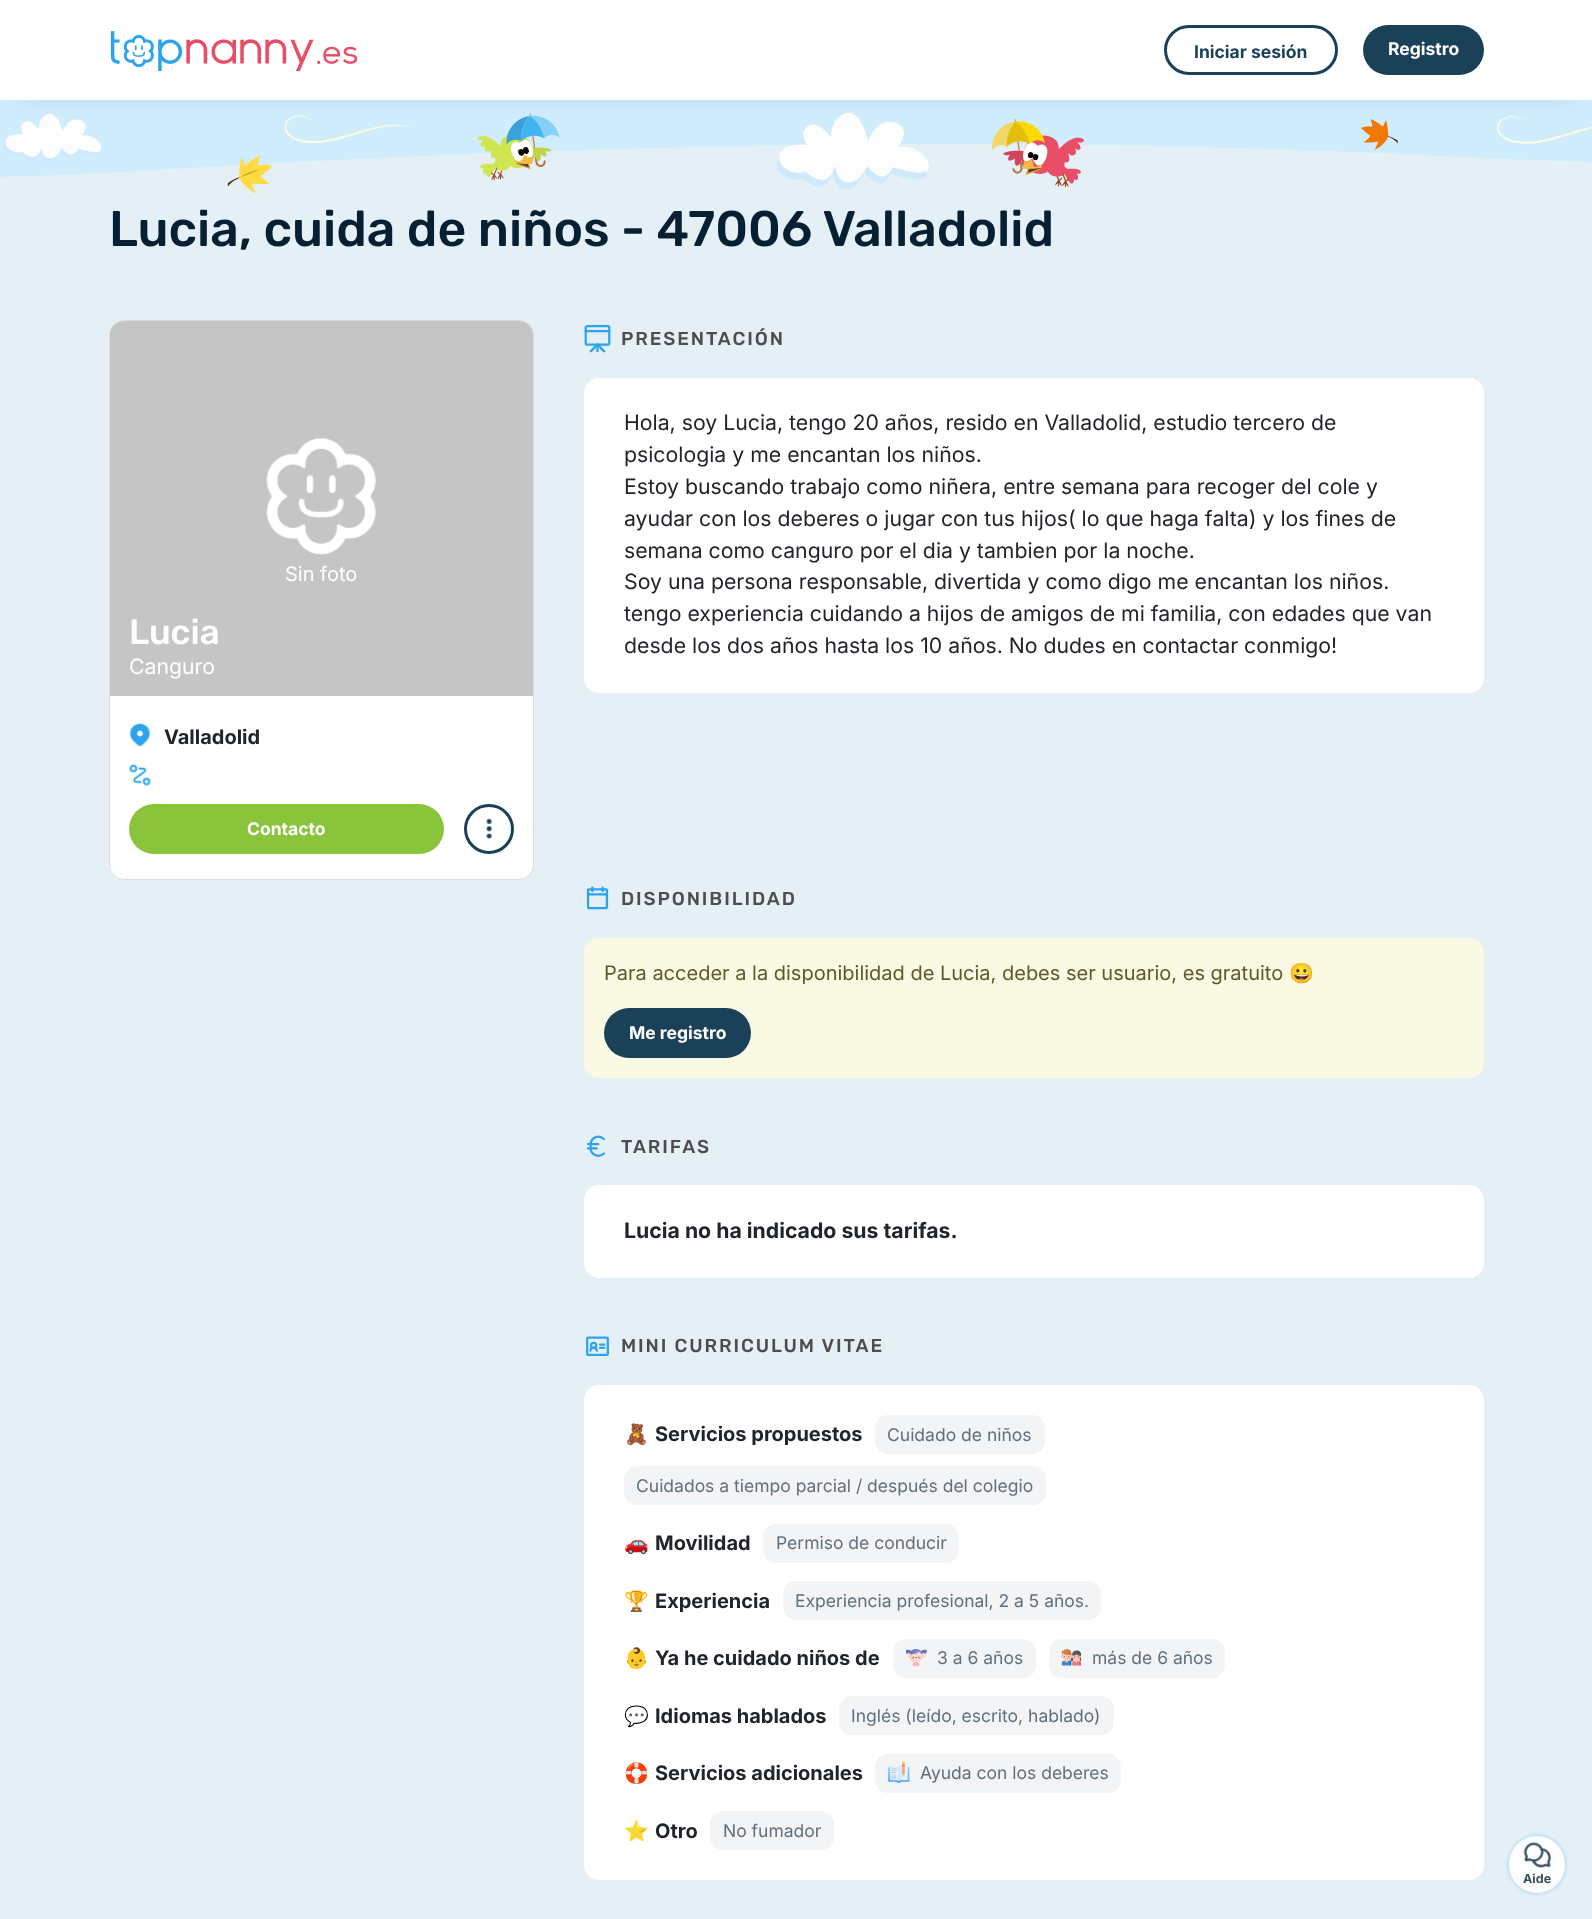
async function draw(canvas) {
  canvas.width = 1592
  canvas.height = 1919
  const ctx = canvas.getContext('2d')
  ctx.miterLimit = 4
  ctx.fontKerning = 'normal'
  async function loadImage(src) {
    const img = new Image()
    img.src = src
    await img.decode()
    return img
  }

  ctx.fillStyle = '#e5f0f6'
  ctx.fillRect(0, 0, 1592, 1919)
  ctx.drawImage(await loadImage('image1.png'), 0, 100, 1592, 94)
  ctx.fillStyle = '#00000014'
  ctx.filter = 'blur(10px)'
  ctx.beginPath()
  ctx.rect(20, 40, 1553, 60)
  ctx.fill()
  ctx.filter = 'none'
  ctx.fillStyle = '#fff'
  ctx.fillRect(0, 0, 1592, 100)
  ctx.drawImage(await loadImage('image0.png'), 110, 31, 248, 40)
  ctx.beginPath()
  ctx.roundRect(1165.5, 26.5, 171, 47, 23.5)
  ctx.strokeStyle = '#1b4159'
  ctx.lineWidth = 3
  ctx.stroke()
  ctx.font = 'bold 17.5px Inter'
  ctx.fillStyle = '#1b4159'
  ctx.fillText('Iniciar sesión', 1194, 58)
  ctx.beginPath()
  ctx.roundRect(1363, 25, 121, 50, 25)
  ctx.fill()
  ctx.fillStyle = '#fff'
  ctx.fillText('Registro', 1388, 55)
  ctx.font = '500 50px Rubik'
  ctx.fillStyle = '#052032'
  ctx.fillText('Lucia, cuida de niños - 47006 Valladolid', 109, 246)
  ctx.fillStyle = '#fff'
  ctx.beginPath()
  ctx.roundRect(109.5, 320.5, 424, 559, 14.5)
  ctx.fill()
  ctx.strokeStyle = '#ddd'
  ctx.lineWidth = 1
  ctx.stroke()
  ctx.fillStyle = '#c5c5c5'
  ctx.beginPath()
  ctx.roundRect(110, 321, 423, 375, [14, 14, 0, 0])
  ctx.fill()
  ctx.drawImage(await loadImage('image2.png'), 266, 437, 110, 118)
  ctx.font = '20px Inter'
  ctx.fillStyle = '#fff'
  ctx.fillText('Sin foto', 285, 581)
  ctx.font = '500 35px Rubik'
  ctx.fillText('Lucia', 129, 644)
  ctx.font = '21.25px Inter'
  ctx.fillText('Canguro', 129, 674)
  ctx.drawImage(await loadImage('image3.png'), 129, 723, 21, 24)
  ctx.font = 'bold 20px Inter'
  ctx.fillStyle = '#212529'
  ctx.fillText('Valladolid', 164, 744)
  ctx.drawImage(await loadImage('image4.png'), 129, 764, 22, 22)
  ctx.fillStyle = '#8ac43b'
  ctx.beginPath()
  ctx.roundRect(129, 804, 315, 50, 25)
  ctx.fill()
  ctx.font = 'bold 17.5px Inter'
  ctx.fillStyle = '#fff'
  ctx.fillText('Contacto', 247, 835)
  ctx.beginPath()
  ctx.arc(489, 829, 23.5, 0, 2 * Math.PI)
  ctx.strokeStyle = '#1b4159'
  ctx.lineWidth = 3
  ctx.stroke()
  ctx.drawImage(await loadImage('image5.png'), 485, 818, 7, 21)
  ctx.drawImage(await loadImage('image6.png'), 584, 325, 27, 28)
  ctx.letterSpacing = '1.9px'
  ctx.font = '500 18.75px Rubik'
  ctx.fillStyle = '#4d4d4d'
  ctx.fillText('PRESENTACIÓN', 621, 345)
  ctx.fillStyle = '#fff'
  ctx.beginPath()
  ctx.roundRect(584, 378, 900, 315, 15)
  ctx.fill()
  ctx.letterSpacing = '0px'
  ctx.font = '21.25px Inter'
  ctx.fillStyle = '#212529'
  ctx.fillText('Hola, soy Lucia, tengo 20 años, resido en Valladolid, estudio tercero de', 624, 430)
  ctx.fillText('psicologia y me encantan los niños.', 624, 462)
  ctx.fillText('Estoy buscando trabajo como niñera, entre semana para recoger del cole y', 624, 494)
  ctx.fillText('ayudar con los deberes o jugar con tus hijos( lo que haga falta) y los fines de', 624, 526)
  ctx.fillText('semana como canguro por el dia y tambien por la noche.', 624, 558)
  ctx.fillText('Soy una persona responsable, divertida y como digo me encantan los niños.', 624, 589)
  ctx.fillText('tengo experiencia cuidando a hijos de amigos de mi familia, con edades que van', 624, 621)
  ctx.fillText('desde los dos años hasta los 10 años. No dudes en contactar conmigo!', 624, 653)
  ctx.drawImage(await loadImage('image7.png'), 586, 886, 23, 24)
  ctx.letterSpacing = '1.9px'
  ctx.font = '500 18.75px Rubik'
  ctx.fillStyle = '#4d4d4d'
  ctx.fillText('DISPONIBILIDAD', 621, 905)
  ctx.fillStyle = '#faf9e3'
  ctx.beginPath()
  ctx.roundRect(584, 938, 900, 140, 15)
  ctx.fill()
  ctx.letterSpacing = '0px'
  ctx.font = '20px Inter'
  ctx.fillStyle = '#5c5a2d'
  ctx.fillText('Para acceder a la disponibilidad de Lucia, debes ser usuario, es gratuito', 604, 980)
  ctx.font = '20px Noto Color Emoji'
  ctx.fillText('😀', 1289, 980)
  ctx.fillStyle = '#1b4159'
  ctx.beginPath()
  ctx.roundRect(604, 1008, 147, 50, 25)
  ctx.fill()
  ctx.font = 'bold 17.5px Inter'
  ctx.fillStyle = '#fff'
  ctx.fillText('Me registro', 629, 1039)
  ctx.drawImage(await loadImage('image8.png'), 586, 1135, 19, 22)
  ctx.letterSpacing = '1.9px'
  ctx.font = '500 18.75px Rubik'
  ctx.fillStyle = '#4d4d4d'
  ctx.fillText('TARIFAS', 621, 1153)
  ctx.fillStyle = '#fff'
  ctx.beginPath()
  ctx.roundRect(584, 1185, 900, 93, 15)
  ctx.fill()
  ctx.letterSpacing = '0px'
  ctx.font = 'bold 21.25px Inter'
  ctx.fillStyle = '#212529'
  ctx.fillText('Lucia no ha indicado sus tarifas.', 624, 1238)
  ctx.drawImage(await loadImage('image9.png'), 586, 1336, 23, 20)
  ctx.letterSpacing = '1.9px'
  ctx.font = '500 18.75px Rubik'
  ctx.fillStyle = '#4d4d4d'
  ctx.fillText('MINI CURRICULUM VITAE', 621, 1352)
  ctx.fillStyle = '#fff'
  ctx.beginPath()
  ctx.roundRect(584, 1385, 900, 495, 15)
  ctx.fill()
  ctx.letterSpacing = '0px'
  ctx.font = 'bold 20px Noto Color Emoji'
  ctx.fillStyle = '#212529'
  ctx.fillText('🧸', 624, 1441)
  ctx.font = 'bold 20px Inter'
  ctx.fillText('Servicios propuestos', 655, 1441)
  ctx.fillStyle = '#f3f4f5'
  ctx.beginPath()
  ctx.roundRect(875, 1415, 170, 39, 13)
  ctx.fill()
  ctx.font = '17.5px Inter'
  ctx.fillStyle = '#5f707c'
  ctx.fillText('Cuidado de niños', 887, 1441)
  ctx.fillStyle = '#f3f4f5'
  ctx.beginPath()
  ctx.roundRect(624, 1466, 422, 39, 13)
  ctx.fill()
  ctx.fillStyle = '#5f707c'
  ctx.fillText('Cuidados a tiempo parcial / después del colegio', 636, 1492)
  ctx.font = 'bold 20px Noto Color Emoji'
  ctx.fillStyle = '#212529'
  ctx.fillText('🚗', 624, 1550)
  ctx.font = 'bold 20px Inter'
  ctx.fillText('Movilidad', 655, 1550)
  ctx.fillStyle = '#f3f4f5'
  ctx.beginPath()
  ctx.roundRect(763, 1524, 196, 39, 13)
  ctx.fill()
  ctx.font = '17.5px Inter'
  ctx.fillStyle = '#5f707c'
  ctx.fillText('Permiso de conducir', 776, 1549)
  ctx.font = 'bold 20px Noto Color Emoji'
  ctx.fillStyle = '#212529'
  ctx.fillText('🏆', 624, 1608)
  ctx.font = 'bold 20px Inter'
  ctx.fillText('Experiencia', 655, 1608)
  ctx.fillStyle = '#f3f4f5'
  ctx.beginPath()
  ctx.roundRect(783, 1581, 318, 39, 13)
  ctx.fill()
  ctx.font = '17.5px Inter'
  ctx.fillStyle = '#5f707c'
  ctx.fillText('Experiencia profesional, 2 a 5 años.', 795, 1607)
  ctx.font = 'bold 20px Noto Color Emoji'
  ctx.fillStyle = '#212529'
  ctx.fillText('👶', 624, 1665)
  ctx.font = 'bold 20px Inter'
  ctx.fillText('Ya he cuidado niños de', 655, 1665)
  ctx.fillStyle = '#f3f4f5'
  ctx.beginPath()
  ctx.roundRect(893, 1639, 143, 39, 13)
  ctx.fill()
  ctx.drawImage(await loadImage('image10.png'), 906, 1649, 21, 18)
  ctx.font = '17.5px Inter'
  ctx.fillStyle = '#5f707c'
  ctx.fillText('3 a 6 años', 937, 1664)
  ctx.fillStyle = '#f3f4f5'
  ctx.beginPath()
  ctx.roundRect(1049, 1639, 176, 39, 13)
  ctx.fill()
  ctx.drawImage(await loadImage('image11.png'), 1061, 1649, 20, 17)
  ctx.fillStyle = '#5f707c'
  ctx.fillText('más de 6 años', 1092, 1664)
  ctx.font = 'bold 20px Noto Color Emoji'
  ctx.fillStyle = '#212529'
  ctx.fillText('💬', 624, 1723)
  ctx.font = 'bold 20px Inter'
  ctx.fillText('Idiomas hablados', 655, 1723)
  ctx.fillStyle = '#f3f4f5'
  ctx.beginPath()
  ctx.roundRect(839, 1696, 275, 39, 13)
  ctx.fill()
  ctx.font = '17.5px Inter'
  ctx.fillStyle = '#5f707c'
  ctx.fillText('Inglés (leído, escrito, hablado)', 851, 1722)
  ctx.font = 'bold 20px Noto Color Emoji'
  ctx.fillStyle = '#212529'
  ctx.fillText('🛟', 624, 1780)
  ctx.font = 'bold 20px Inter'
  ctx.fillText('Servicios adicionales', 655, 1780)
  ctx.fillStyle = '#f3f4f5'
  ctx.beginPath()
  ctx.roundRect(875, 1754, 246, 39, 13)
  ctx.fill()
  ctx.drawImage(await loadImage('image12.png'), 888, 1761, 22, 23)
  ctx.font = '17.5px Inter'
  ctx.fillStyle = '#5f707c'
  ctx.fillText('Ayuda con los deberes', 920, 1779)
  ctx.font = 'bold 20px Noto Color Emoji'
  ctx.fillStyle = '#212529'
  ctx.fillText('⭐', 624, 1838)
  ctx.font = 'bold 20px Inter'
  ctx.fillText('Otro', 655, 1838)
  ctx.fillStyle = '#f3f4f5'
  ctx.beginPath()
  ctx.roundRect(710, 1811, 124, 39, 13)
  ctx.fill()
  ctx.font = '17.5px Inter'
  ctx.fillStyle = '#5f707c'
  ctx.fillText('No fumador', 723, 1837)
  ctx.save()
  ctx.beginPath()
  ctx.moveTo(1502, 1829)
  ctx.lineTo(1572, 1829)
  ctx.lineTo(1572, 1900)
  ctx.lineTo(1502, 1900)
  ctx.closePath()
  ctx.moveTo(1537, 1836)
  ctx.bezierCurveTo(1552.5, 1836, 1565, 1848.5, 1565, 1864)
  ctx.lineTo(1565, 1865)
  ctx.bezierCurveTo(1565, 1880.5, 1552.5, 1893, 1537, 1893)
  ctx.bezierCurveTo(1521.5, 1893, 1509, 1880.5, 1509, 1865)
  ctx.lineTo(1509, 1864)
  ctx.bezierCurveTo(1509, 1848.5, 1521.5, 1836, 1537, 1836)
  ctx.closePath()
  ctx.clip('evenodd')
  ctx.fillStyle = '#2da3ed80'
  ctx.filter = 'blur(2px)'
  ctx.beginPath()
  ctx.roundRect(1509, 1836, 56, 57, 28)
  ctx.fill()
  ctx.filter = 'none'
  ctx.restore()
  ctx.fillStyle = '#ffffffd9'
  ctx.beginPath()
  ctx.roundRect(1509, 1836, 56, 57, 28)
  ctx.fill()
  ctx.drawImage(await loadImage('image13.png'), 1523, 1842, 28, 26)
  ctx.font = 'bold 12.5px Inter'
  ctx.fillStyle = '#374d5b'
  ctx.fillText('Aide', 1523, 1883)
}

draw(document.querySelector('canvas'))
